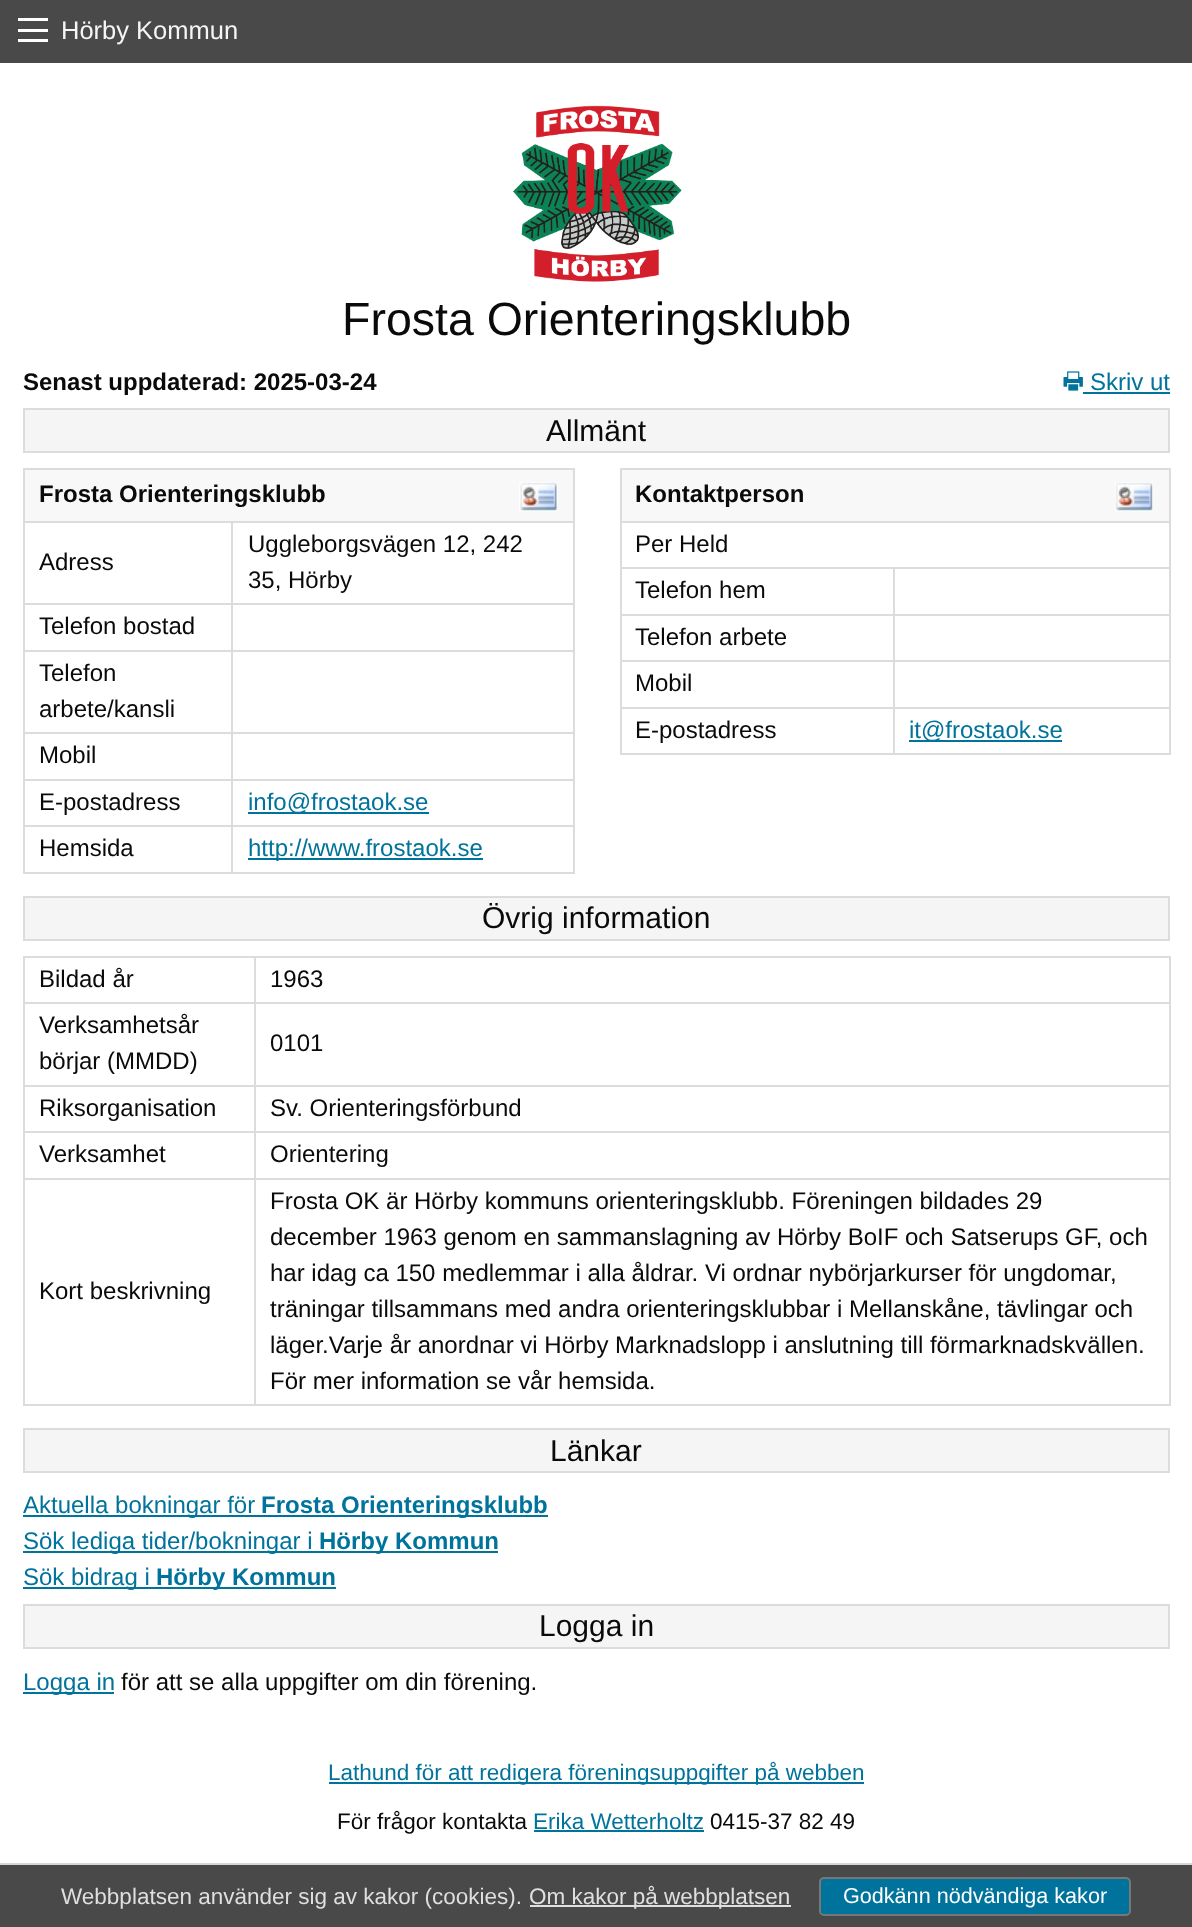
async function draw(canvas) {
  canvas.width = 1192
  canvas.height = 1927
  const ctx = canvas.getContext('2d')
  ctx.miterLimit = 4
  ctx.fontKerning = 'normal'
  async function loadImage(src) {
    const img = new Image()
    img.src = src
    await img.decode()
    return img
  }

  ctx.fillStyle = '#fff'
  ctx.fillRect(0, 0, 1192, 1927)
  ctx.fillStyle = '#494949'
  ctx.fillRect(0, 0, 1192, 63)
  ctx.fillStyle = '#fff'
  ctx.fillRect(18, 39, 30, 3)
  ctx.fillRect(18, 29, 30, 3)
  ctx.fillRect(18, 18, 30, 3)
  ctx.font = '25.5px Liberation Sans'
  ctx.fillStyle = '#f5f5f5'
  ctx.fillText('Hörby Kommun', 61, 39)
  ctx.drawImage(await loadImage('image0.png'), 513, 105, 169, 177)
  ctx.font = '46.5px Liberation Sans'
  ctx.fillStyle = '#0a0a0a'
  ctx.fillText('Frosta Orienteringsklubb', 342, 335)
  ctx.font = 'bold 24px Liberation Sans'
  ctx.fillText('Senast uppdaterad: 2025-03-24', 23, 390)
  ctx.drawImage(await loadImage('image1.png'), 1063, 371, 20, 20)
  ctx.font = '24px Liberation Sans'
  ctx.fillStyle = '#00739c'
  ctx.fillText('Skriv ut', 1090, 390)
  ctx.fillRect(1083, 392, 87, 2)
  ctx.fillStyle = '#f5f5f5'
  ctx.beginPath()
  ctx.rect(24, 409, 1145, 43)
  ctx.fill()
  ctx.strokeStyle = '#dcdcdc'
  ctx.lineWidth = 2
  ctx.stroke()
  ctx.font = '30px Liberation Sans'
  ctx.fillStyle = '#0a0a0a'
  ctx.fillText('Allmänt', 546, 441)
  ctx.fillStyle = '#f8f8f8'
  ctx.fillRect(25, 470, 548, 51)
  ctx.fillStyle = '#dcdcdc'
  ctx.fillRect(23, 468, 552, 2)
  ctx.fillRect(231, 521, 344, 2)
  ctx.fillRect(23, 603, 552, 2)
  ctx.fillRect(23, 650, 552, 2)
  ctx.fillRect(23, 732, 552, 2)
  ctx.fillRect(23, 779, 552, 2)
  ctx.fillRect(23, 825, 552, 2)
  ctx.fillRect(23, 872, 552, 2)
  ctx.fillRect(573, 603, 2, 270)
  ctx.fillRect(573, 521, 2, 84)
  ctx.fillRect(573, 468, 2, 54)
  ctx.fillRect(231, 603, 2, 270)
  ctx.fillRect(231, 521, 2, 84)
  ctx.fillRect(23, 521, 210, 2)
  ctx.fillRect(23, 603, 2, 270)
  ctx.fillRect(23, 521, 2, 84)
  ctx.fillRect(23, 468, 2, 54)
  ctx.font = 'bold 24px Liberation Sans'
  ctx.fillStyle = '#0a0a0a'
  ctx.fillText('Frosta Orienteringsklubb', 39, 502)
  ctx.drawImage(await loadImage('image2.png'), 519, 482, 39, 30)
  ctx.font = '24px Liberation Sans'
  ctx.fillText('Adress', 39, 570)
  ctx.fillText('Uggleborgsvägen 12, 242', 248, 552)
  ctx.fillText('35, Hörby', 248, 588)
  ctx.fillText('Telefon bostad', 39, 634)
  ctx.fillText('Telefon', 39, 681)
  ctx.fillText('arbete/kansli', 39, 717)
  ctx.fillText('Mobil', 39, 763)
  ctx.fillText('E-postadress', 39, 810)
  ctx.fillStyle = '#00739c'
  ctx.fillRect(248, 812, 181, 2)
  ctx.fillText('info@frostaok.se', 248, 810)
  ctx.fillStyle = '#0a0a0a'
  ctx.fillText('Hemsida', 39, 856)
  ctx.fillStyle = '#00739c'
  ctx.fillRect(248, 858, 235, 2)
  ctx.fillText('http://www.frostaok.se', 248, 856)
  ctx.fillStyle = '#f8f8f8'
  ctx.fillRect(622, 470, 547, 51)
  ctx.fillStyle = '#dcdcdc'
  ctx.fillRect(620, 468, 550, 2)
  ctx.fillRect(620, 521, 550, 2)
  ctx.fillRect(620, 567, 550, 2)
  ctx.fillRect(620, 614, 550, 2)
  ctx.fillRect(620, 660, 550, 2)
  ctx.fillRect(620, 707, 550, 2)
  ctx.fillRect(620, 753, 550, 2)
  ctx.fillRect(1169, 567, 2, 188)
  ctx.fillRect(1169, 521, 2, 48)
  ctx.fillRect(1169, 468, 2, 54)
  ctx.fillRect(620, 567, 2, 188)
  ctx.fillRect(620, 521, 2, 48)
  ctx.fillRect(620, 468, 2, 54)
  ctx.font = 'bold 24px Liberation Sans'
  ctx.fillStyle = '#0a0a0a'
  ctx.fillText('Kontaktperson', 635, 502)
  ctx.drawImage(await loadImage('image3.png'), 1115, 482, 38, 30)
  ctx.font = '24px Liberation Sans'
  ctx.fillText('Per Held', 635, 552)
  ctx.fillText('Telefon hem', 635, 598)
  ctx.fillText('Telefon arbete', 635, 645)
  ctx.fillText('Mobil', 635, 691)
  ctx.fillText('E-postadress', 635, 738)
  ctx.fillStyle = '#dcdcdc'
  ctx.fillRect(893, 567, 2, 188)
  ctx.fillStyle = '#00739c'
  ctx.fillRect(909, 740, 153, 2)
  ctx.fillText('it@frostaok.se', 909, 738)
  ctx.fillStyle = '#f5f5f5'
  ctx.beginPath()
  ctx.rect(24, 897, 1145, 43)
  ctx.fill()
  ctx.stroke()
  ctx.font = '30px Liberation Sans'
  ctx.fillStyle = '#0a0a0a'
  ctx.fillText('Övrig information', 482, 928)
  ctx.fillStyle = '#dcdcdc'
  ctx.fillRect(23, 1002, 1147, 2)
  ctx.fillRect(254, 956, 916, 2)
  ctx.fillRect(23, 1085, 1147, 2)
  ctx.fillRect(23, 1131, 1147, 2)
  ctx.fillRect(23, 1178, 1147, 2)
  ctx.fillRect(23, 1404, 1147, 2)
  ctx.fillRect(254, 1002, 2, 404)
  ctx.fillRect(254, 956, 2, 48)
  ctx.fillRect(23, 956, 232, 2)
  ctx.fillRect(23, 1002, 2, 404)
  ctx.fillRect(23, 956, 2, 48)
  ctx.font = '24px Liberation Sans'
  ctx.fillStyle = '#0a0a0a'
  ctx.fillText('Bildad år', 39, 987)
  ctx.fillStyle = '#dcdcdc'
  ctx.fillRect(1169, 1002, 2, 404)
  ctx.fillRect(1169, 956, 2, 48)
  ctx.fillStyle = '#0a0a0a'
  ctx.fillText('1963', 270, 987)
  ctx.fillText('Verksamhetsår', 39, 1033)
  ctx.fillText('börjar (MMDD)', 39, 1069)
  ctx.fillText('0101', 270, 1051)
  ctx.fillText('Riksorganisation', 39, 1116)
  ctx.fillText('Sv. Orienteringsförbund', 270, 1116)
  ctx.fillText('Verksamhet', 39, 1162)
  ctx.fillText('Orientering', 270, 1162)
  ctx.fillText('Kort beskrivning', 39, 1299)
  ctx.fillText('Frosta OK är Hörby kommuns orienteringsklubb. Föreningen bildades 29', 270, 1209)
  ctx.fillText('december 1963 genom en sammanslagning av Hörby BoIF och Satserups GF, och', 270, 1245)
  ctx.fillText('har idag ca 150 medlemmar i alla åldrar. Vi ordnar nybörjarkurser för ungdomar,', 270, 1281)
  ctx.fillText('träningar tillsammans med andra orienteringsklubbar i Mellanskåne, tävlingar och', 270, 1317)
  ctx.fillText('läger.Varje år anordnar vi Hörby Marknadslopp i anslutning till förmarknadskvällen.', 270, 1353)
  ctx.fillText('För mer information se vår hemsida.', 270, 1389)
  ctx.fillStyle = '#f5f5f5'
  ctx.beginPath()
  ctx.rect(24, 1429, 1145, 43)
  ctx.fill()
  ctx.stroke()
  ctx.font = '30px Liberation Sans'
  ctx.fillStyle = '#0a0a0a'
  ctx.fillText('Länkar', 550, 1461)
  ctx.fillStyle = '#00739c'
  ctx.fillRect(23, 1515, 525, 2)
  ctx.font = '24px Liberation Sans'
  ctx.fillText('Aktuella bokningar för', 23, 1513)
  ctx.font = 'bold 24px Liberation Sans'
  ctx.fillText('Frosta Orienteringsklubb', 261, 1513)
  ctx.fillRect(23, 1551, 475, 2)
  ctx.font = '24px Liberation Sans'
  ctx.fillText('Sök lediga tider/bokningar i', 23, 1549)
  ctx.font = 'bold 24px Liberation Sans'
  ctx.fillText('Hörby Kommun', 319, 1549)
  ctx.fillRect(23, 1587, 313, 2)
  ctx.font = '24px Liberation Sans'
  ctx.fillText('Sök bidrag i', 23, 1585)
  ctx.font = 'bold 24px Liberation Sans'
  ctx.fillText('Hörby Kommun', 156, 1585)
  ctx.fillStyle = '#f5f5f5'
  ctx.beginPath()
  ctx.rect(24, 1605, 1145, 43)
  ctx.fill()
  ctx.stroke()
  ctx.font = '30px Liberation Sans'
  ctx.fillStyle = '#0a0a0a'
  ctx.fillText('Logga in', 539, 1636)
  ctx.fillStyle = '#00739c'
  ctx.fillRect(23, 1692, 91, 2)
  ctx.font = '24px Liberation Sans'
  ctx.fillText('Logga in', 23, 1690)
  ctx.fillStyle = '#0a0a0a'
  ctx.fillText('för att se alla uppgifter om din förening.', 121, 1690)
  ctx.fillStyle = '#00739c'
  ctx.fillRect(329, 1782, 535, 2)
  ctx.font = '22.5px Liberation Sans'
  ctx.fillText('Lathund för att redigera föreningsuppgifter på webben', 328, 1780)
  ctx.fillStyle = '#0a0a0a'
  ctx.fillText('För frågor kontakta', 337, 1829)
  ctx.fillStyle = '#00739c'
  ctx.fillText('Erika Wetterholtz', 533, 1829)
  ctx.fillRect(534, 1830, 170, 2)
  ctx.fillStyle = '#0a0a0a'
  ctx.fillText('0415-37 82 49', 710, 1829)
  ctx.fillStyle = '#494949'
  ctx.fillRect(0, 1865, 1192, 62)
  ctx.fillStyle = '#d6d6d6'
  ctx.fillRect(0, 1863, 1192, 2)
  ctx.fillStyle = '#dfdfdf'
  ctx.fillText('Webbplatsen använder sig av kakor (cookies).', 61, 1904)
  ctx.fillRect(530, 1905, 261, 2)
  ctx.fillText('Om kakor på webbplatsen', 529, 1904)
  ctx.fillStyle = '#00739c'
  ctx.beginPath()
  ctx.roundRect(820, 1878, 310, 37, 4)
  ctx.fill()
  ctx.strokeStyle = '#777'
  ctx.stroke()
  ctx.font = '21.6px Liberation Sans'
  ctx.fillStyle = '#fefefe'
  ctx.fillText('Godkänn nödvändiga kakor', 843, 1903)
}

draw(document.querySelector('canvas'))
